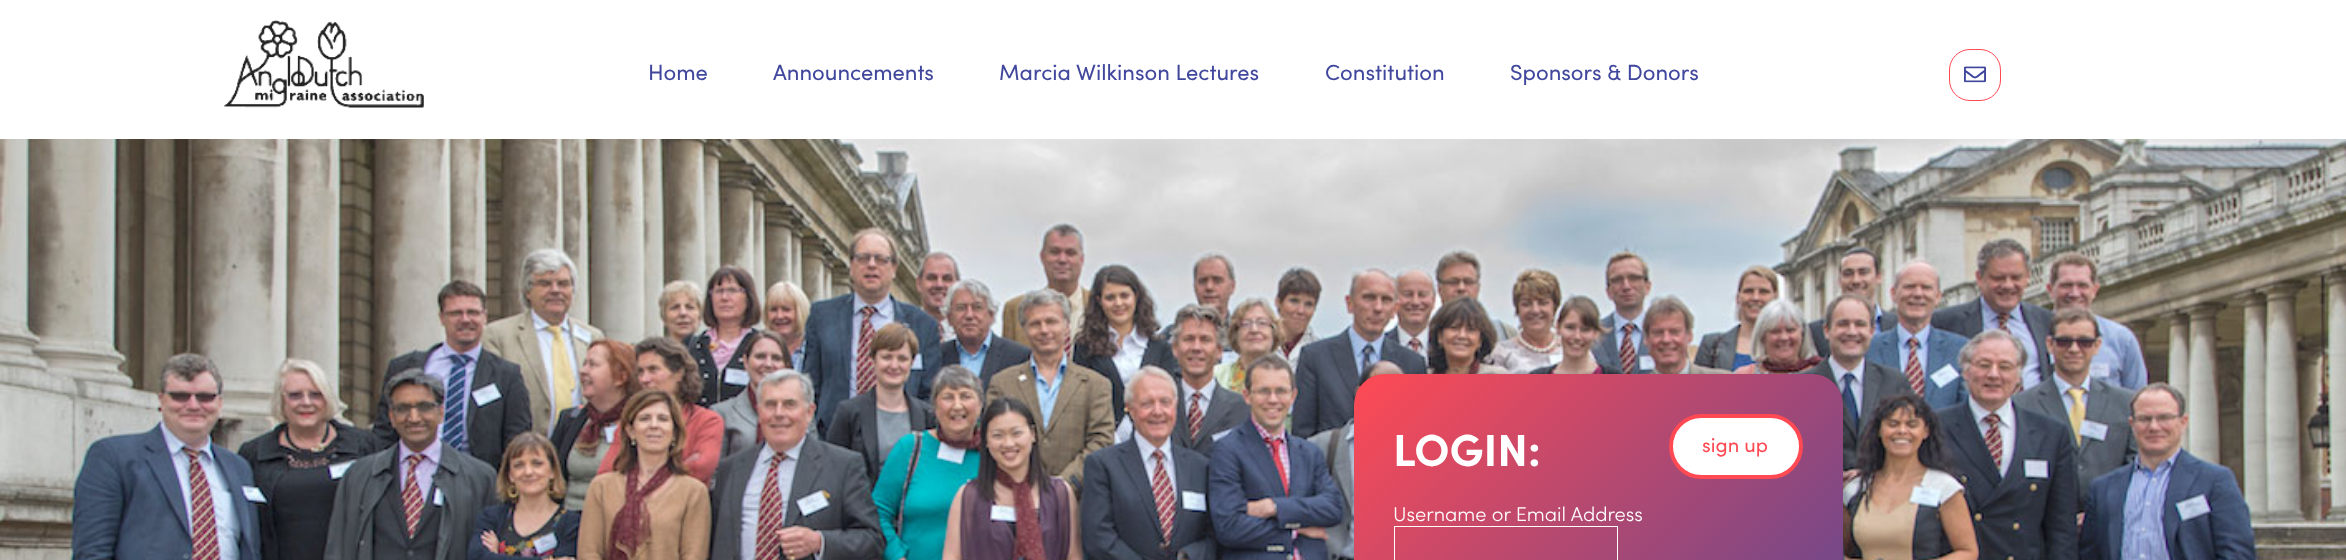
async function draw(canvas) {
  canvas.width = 2346
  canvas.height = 560
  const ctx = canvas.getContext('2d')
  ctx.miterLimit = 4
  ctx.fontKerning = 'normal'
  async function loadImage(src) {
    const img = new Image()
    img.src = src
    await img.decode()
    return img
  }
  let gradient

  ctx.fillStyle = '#fff'
  ctx.fillRect(0, 0, 2346, 560)
  ctx.drawImage(await loadImage('image0.png'), 223, 20, 201, 88)
  ctx.drawImage(await loadImage('image1.png'), 1964, 66, 22, 17)
  ctx.beginPath()
  ctx.roundRect(1949.5, 49.5, 51, 51, 20.5)
  ctx.strokeStyle = '#ff4a54'
  ctx.stroke()
  ctx.font = '22px Sofia'
  ctx.fillStyle = '#40479c'
  ctx.fillText('Home', 648, 80)
  ctx.fillText('Announcements', 773, 80)
  ctx.fillText('Marcia Wilkinson Lectures', 999, 80)
  ctx.fillText('Constitution', 1325, 80)
  ctx.fillText('Sponsors & Donors', 1510, 80)
  ctx.drawImage(await loadImage('image2.png'), 0, 139, 2346, 421)
  ctx.fillStyle = '#0000004d'
  ctx.filter = 'blur(5px)'
  ctx.beginPath()
  ctx.roundRect(1355, 375, 491, 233, 33)
  ctx.fill()
  ctx.filter = 'none'
  gradient = ctx.createLinearGradient(1364, 364, 1833, 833)
  gradient.addColorStop(0, '#ff4a54')
  gradient.addColorStop(1, '#40479c')
  ctx.fillStyle = gradient
  ctx.beginPath()
  ctx.roundRect(1354, 374, 489, 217, 31)
  ctx.fill()
  ctx.font = 'bold 45px Sofia'
  ctx.fillStyle = '#fff'
  ctx.fillText('LOGIN:', 1393, 466)
  ctx.beginPath()
  ctx.roundRect(1671, 416, 130, 61, 30.5)
  ctx.fill()
  ctx.lineWidth = 4
  ctx.stroke()
  ctx.font = '20px Sofia'
  ctx.fillStyle = '#ff4a54'
  ctx.fillText('sign up', 1702, 452)
  ctx.font = '300 20px Sofia'
  ctx.fillStyle = '#fff'
  ctx.fillText('Username or Email Address', 1393, 521)
  ctx.strokeStyle = '#fff'
  ctx.lineWidth = 1
  ctx.strokeRect(1394.5, 526.5, 223, 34)
}

draw(document.querySelector('canvas'))
